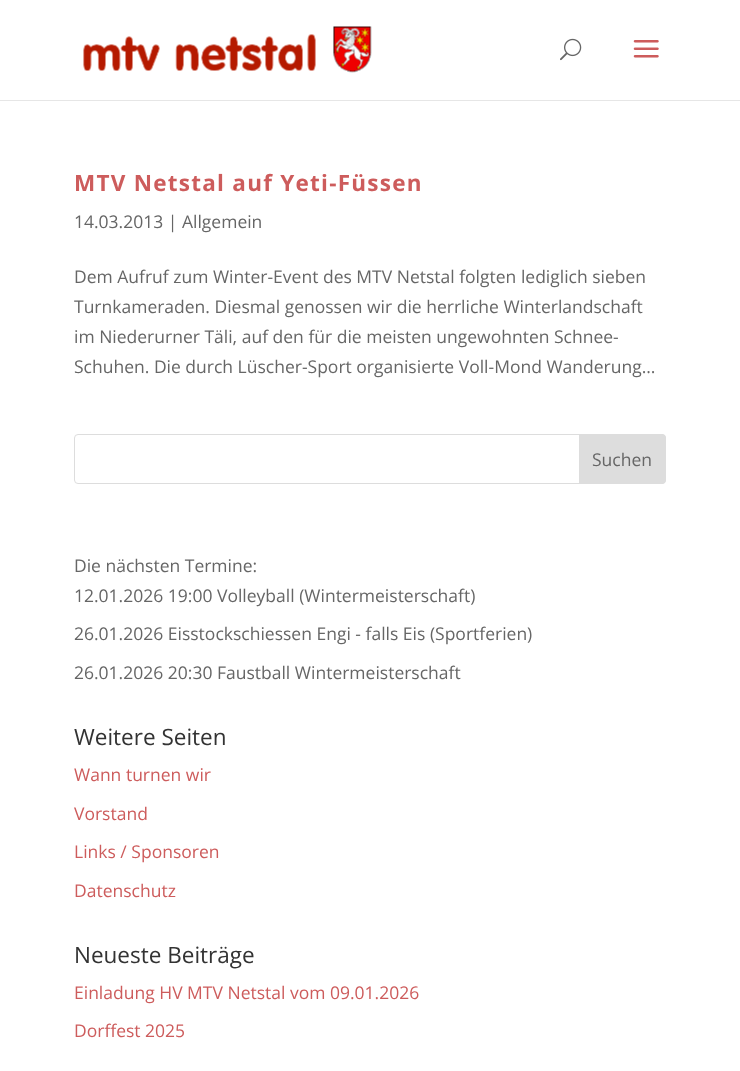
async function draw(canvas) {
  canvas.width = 740
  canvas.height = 1071
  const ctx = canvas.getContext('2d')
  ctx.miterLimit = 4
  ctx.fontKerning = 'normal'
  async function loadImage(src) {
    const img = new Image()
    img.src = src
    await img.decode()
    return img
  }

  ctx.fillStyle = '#fff'
  ctx.fillRect(0, 0, 740, 1071)
  ctx.fillStyle = '#e6e6e6'
  ctx.fillRect(0, 100, 740, 1)
  ctx.drawImage(await loadImage('image0.png'), 83, 26, 289, 47)
  ctx.drawImage(await loadImage('image1.png'), 560, 38, 22, 23)
  ctx.drawImage(await loadImage('image2.png'), 633, 40, 26, 18)
  ctx.letterSpacing = '1.25px'
  ctx.font = 'bold 22.5px Open Sans'
  ctx.fillStyle = '#cd5c5c'
  ctx.fillText('MTV Netstal auf Yeti-Füssen', 74, 191)
  ctx.letterSpacing = '0px'
  ctx.font = '17.5px Open Sans'
  ctx.fillStyle = '#666'
  ctx.fillText('14.03.2013 | Allgemein', 74, 228)
  ctx.fillText('Dem Aufruf zum Winter-Event des MTV Netstal folgten lediglich sieben', 74, 283)
  ctx.fillText('Turnkameraden. Diesmal genossen wir die herrliche Winterlandschaft', 74, 313)
  ctx.fillText('im Niederurner Täli, auf den für die meisten ungewohnten Schnee-', 74, 343)
  ctx.fillText('Schuhen. Die durch Lüscher-Sport organisierte Voll-Mond Wanderung...', 74, 373)
  ctx.beginPath()
  ctx.roundRect(74.5, 434.5, 591, 49, 3.5)
  ctx.strokeStyle = '#ddd'
  ctx.stroke()
  ctx.fillStyle = '#ddd'
  ctx.beginPath()
  ctx.roundRect(579.5, 434.5, 86, 49, [0, 3.5, 3.5, 0])
  ctx.fill()
  ctx.stroke()
  ctx.fillStyle = '#666'
  ctx.fillText('Suchen', 592, 466)
  ctx.fillText('Die nächsten Termine:', 74, 572)
  ctx.fillText('12.01.2026 19:00 Volleyball (Wintermeisterschaft)', 74, 602)
  ctx.fillText('26.01.2026 Eisstockschiessen Engi - falls Eis (Sportferien)', 74, 640)
  ctx.fillText('26.01.2026 20:30 Faustball Wintermeisterschaft', 74, 679)
  ctx.font = '22.5px Open Sans'
  ctx.fillStyle = '#333'
  ctx.fillText('Weitere Seiten', 74, 745)
  ctx.font = '17.5px Open Sans'
  ctx.fillStyle = '#cd5c5c'
  ctx.fillText('Wann turnen wir', 74, 781)
  ctx.fillText('Vorstand', 74, 820)
  ctx.fillText('Links / Sponsoren', 74, 858)
  ctx.fillText('Datenschutz', 74, 897)
  ctx.font = '22.5px Open Sans'
  ctx.fillStyle = '#333'
  ctx.fillText('Neueste Beiträge', 74, 963)
  ctx.font = '17.5px Open Sans'
  ctx.fillStyle = '#cd5c5c'
  ctx.fillText('Einladung HV MTV Netstal vom 09.01.2026', 74, 999)
  ctx.fillText('Dorffest 2025', 74, 1037)
}

draw(document.querySelector('canvas'))
